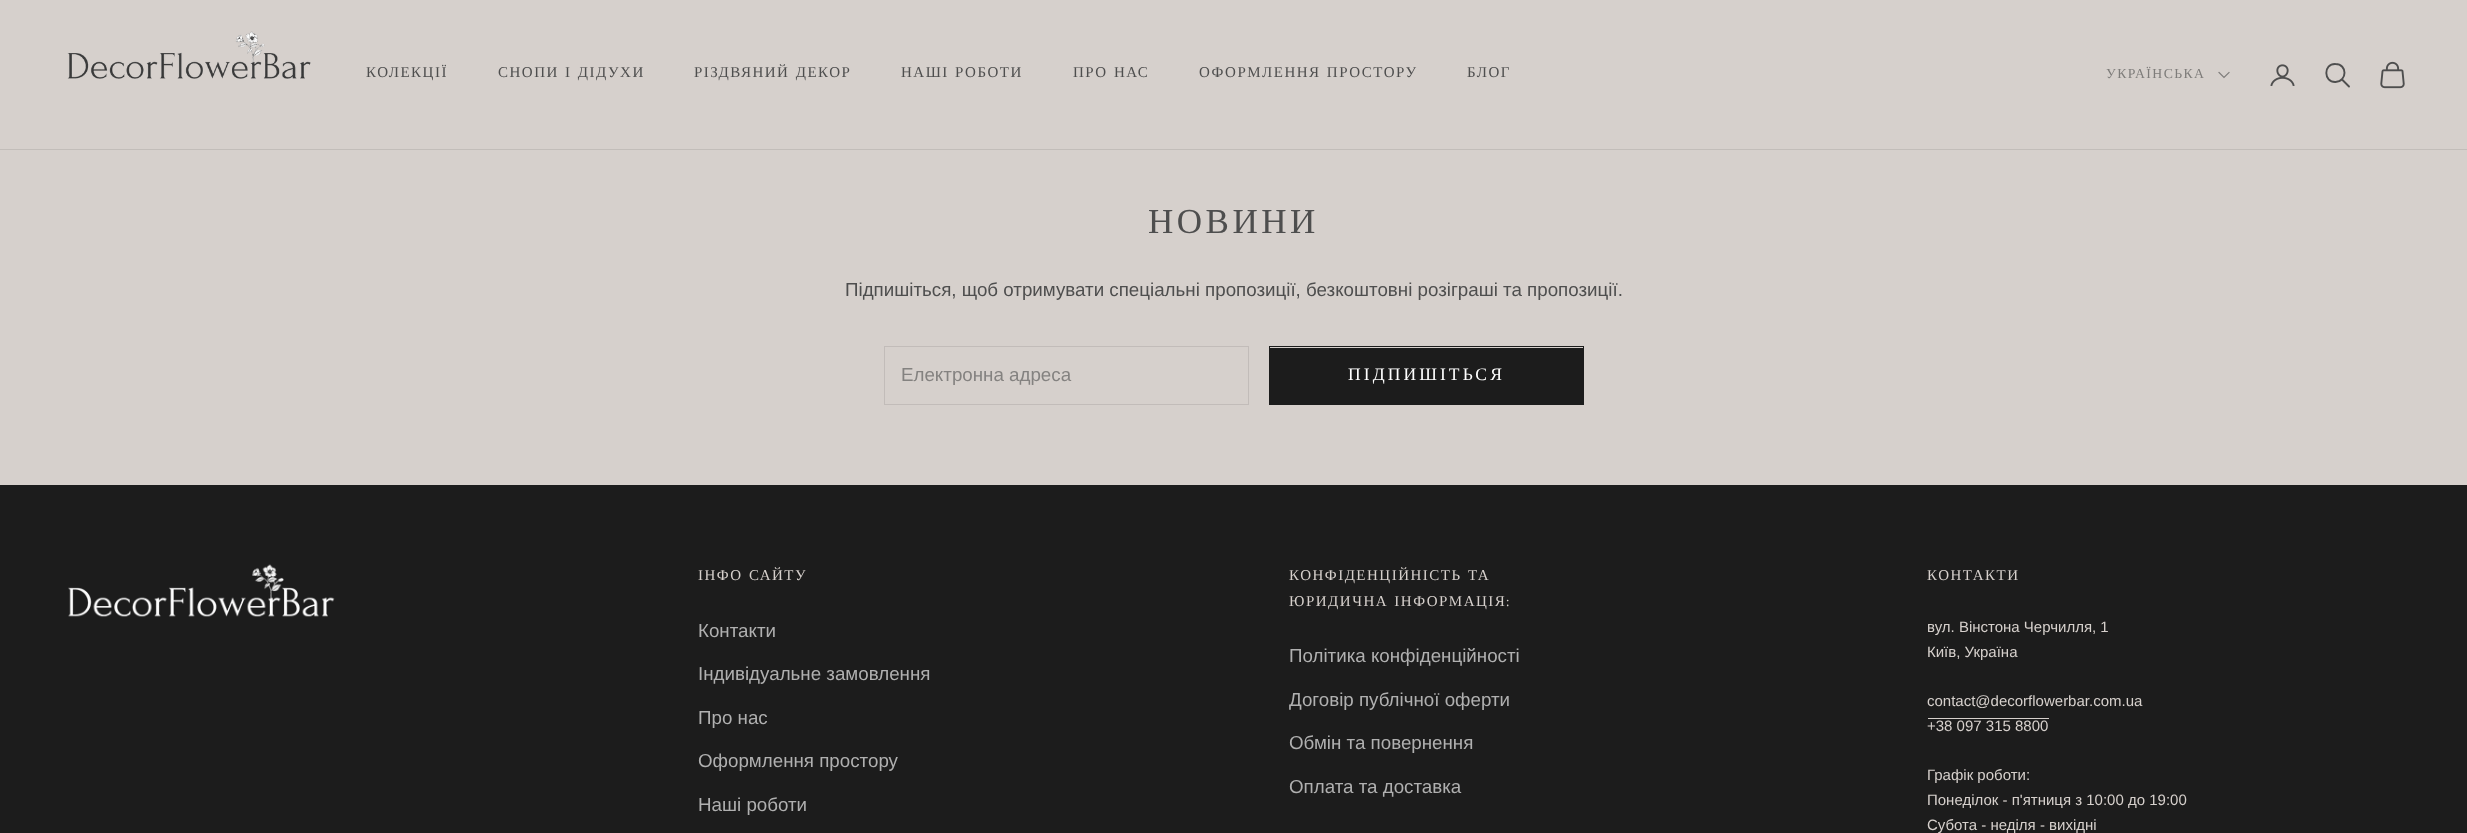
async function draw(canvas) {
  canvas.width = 2467
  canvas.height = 833
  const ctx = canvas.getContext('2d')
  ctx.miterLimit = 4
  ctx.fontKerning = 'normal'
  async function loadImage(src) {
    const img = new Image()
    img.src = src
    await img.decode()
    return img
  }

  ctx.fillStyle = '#d6d0cc'
  ctx.fillRect(0, 0, 2467, 833)
  ctx.fillStyle = '#c2bdb9'
  ctx.fillRect(0, 149, 2467, 1)
  ctx.drawImage(await loadImage('image0.png'), 67, 31, 244, 48)
  ctx.letterSpacing = '1.5px'
  ctx.font = '15px Liberation Serif'
  ctx.fillStyle = '#4e4e4e'
  ctx.fillText('КОЛЕКЦІЇ', 366, 77)
  ctx.wordSpacing = '1px'
  ctx.fillText('СНОПИ І ДІДУХИ', 498, 77)
  ctx.fillText('РІЗДВЯНИЙ ДЕКОР', 694, 77)
  ctx.fillText('НАШІ РОБОТИ', 901, 77)
  ctx.fillText('ПРО НАС', 1073, 77)
  ctx.fillText('ОФОРМЛЕННЯ ПРОСТОРУ', 1199, 77)
  ctx.wordSpacing = '0px'
  ctx.fillText('БЛОГ', 1467, 77)
  ctx.letterSpacing = '1.4px'
  ctx.font = '13.75px Liberation Serif'
  ctx.fillStyle = '#7e7c7a'
  ctx.fillText('УКРАЇНСЬКА', 2106, 78)
  ctx.beginPath()
  ctx.moveTo(2219, 72.5)
  ctx.lineTo(2224, 77.5)
  ctx.lineTo(2229, 72.5)
  ctx.strokeStyle = '#7e7c7a'
  ctx.lineWidth = 1.2
  ctx.lineCap = 'square'
  ctx.stroke()
  ctx.drawImage(await loadImage('image1.png'), 2270, 64, 25, 22)
  ctx.beginPath()
  ctx.moveTo(2335.5, 64)
  ctx.bezierCurveTo(2323, 63.5, 2323.5, 82.5, 2335.5, 82)
  ctx.bezierCurveTo(2347.5, 81.5, 2347.5, 64, 2335.5, 64)
  ctx.closePath()
  ctx.strokeStyle = '#4e4e4e'
  ctx.lineWidth = 1.9
  ctx.lineCap = 'butt'
  ctx.stroke()
  ctx.beginPath()
  ctx.moveTo(2342.5, 80)
  ctx.lineTo(2349, 86.5)
  ctx.lineCap = 'round'
  ctx.stroke()
  ctx.drawImage(await loadImage('image2.png'), 2380, 61, 25, 28)
  ctx.letterSpacing = '3.5px'
  ctx.font = '35px Liberation Serif'
  ctx.fillStyle = '#4e4e4e'
  ctx.fillText('НОВИНИ', 1148, 233)
  ctx.letterSpacing = '0px'
  ctx.font = '18.75px Liberation Sans'
  ctx.fillText('Підпишіться, щоб отримувати спеціальні пропозиції, безкоштовні розіграші та пропозиції.', 845, 296)
  ctx.strokeStyle = '#c2bcb9'
  ctx.lineWidth = 1
  ctx.strokeRect(884.5, 346.5, 364, 58)
  ctx.fillStyle = '#848280'
  ctx.fillText('Електронна адреса', 901, 381)
  ctx.fillStyle = '#1c1c1c'
  ctx.fillRect(1270, 348, 313, 56)
  ctx.strokeStyle = '#1c1c1c'
  ctx.strokeRect(1269.5, 346.5, 314, 58)
  ctx.letterSpacing = '3.1px'
  ctx.font = '17.5px Liberation Serif'
  ctx.fillStyle = '#fff'
  ctx.fillText('ПІДПИШІТЬСЯ', 1348, 380)
  ctx.fillStyle = '#1c1c1c'
  ctx.fillRect(0, 485, 2467, 348)
  ctx.drawImage(await loadImage('image3.png'), 68, 564, 267, 53)
  ctx.letterSpacing = '1.5px'
  ctx.wordSpacing = '1px'
  ctx.font = '15px Liberation Serif'
  ctx.fillStyle = '#d6d0cc'
  ctx.fillText('ІНФО САЙТУ', 698, 580)
  ctx.letterSpacing = '0px'
  ctx.wordSpacing = '0px'
  ctx.font = '18.75px Liberation Sans'
  ctx.fillStyle = '#b0b0b0'
  ctx.fillText('Контакти', 698, 637)
  ctx.fillText('Індивідуальне замовлення', 698, 680)
  ctx.fillText('Про нас', 698, 724)
  ctx.fillText('Оформлення простору', 698, 767)
  ctx.fillText('Наші роботи', 698, 811)
  ctx.letterSpacing = '1.5px'
  ctx.wordSpacing = '1px'
  ctx.font = '15px Liberation Serif'
  ctx.fillStyle = '#d6d0cc'
  ctx.fillText('КОНФІДЕНЦІЙНІСТЬ ТА', 1289, 580)
  ctx.fillText('ЮРИДИЧНА ІНФОРМАЦІЯ', 1289, 606)
  ctx.wordSpacing = '0px'
  ctx.font = '15px Amiri'
  ctx.fillText(':', 1506, 606)
  ctx.letterSpacing = '0px'
  ctx.font = '18.75px Liberation Sans'
  ctx.fillStyle = '#b0b0b0'
  ctx.fillText('Політика конфіденційності', 1289, 662)
  ctx.fillText('Договір публічної оферти', 1289, 706)
  ctx.fillText('Обмін та повернення', 1289, 749)
  ctx.fillText('Оплата та доставка', 1289, 793)
  ctx.letterSpacing = '1.5px'
  ctx.font = '15px Liberation Serif'
  ctx.fillStyle = '#d6d0cc'
  ctx.fillText('КОНТАКТИ', 1927, 580)
  ctx.letterSpacing = '0px'
  ctx.font = '15px Liberation Sans'
  ctx.fillText('вул. Вінстона Черчилля, 1', 1927, 632)
  ctx.fillText('Київ, Україна', 1927, 657)
  ctx.fillText('contact@decorflowerbar.com.ua', 1927, 706)
  ctx.fillText('+38 097 315 8800', 1927, 731)
  ctx.fillRect(1928, 718, 121, 1)
  ctx.fillText('Графік роботи:', 1927, 780)
  ctx.fillText('Понеділок - п\'ятниця з 10:00 до 19:00', 1927, 805)
  ctx.fillText('Субота - неділя - вихідні', 1927, 830)
}

draw(document.querySelector('canvas'))
